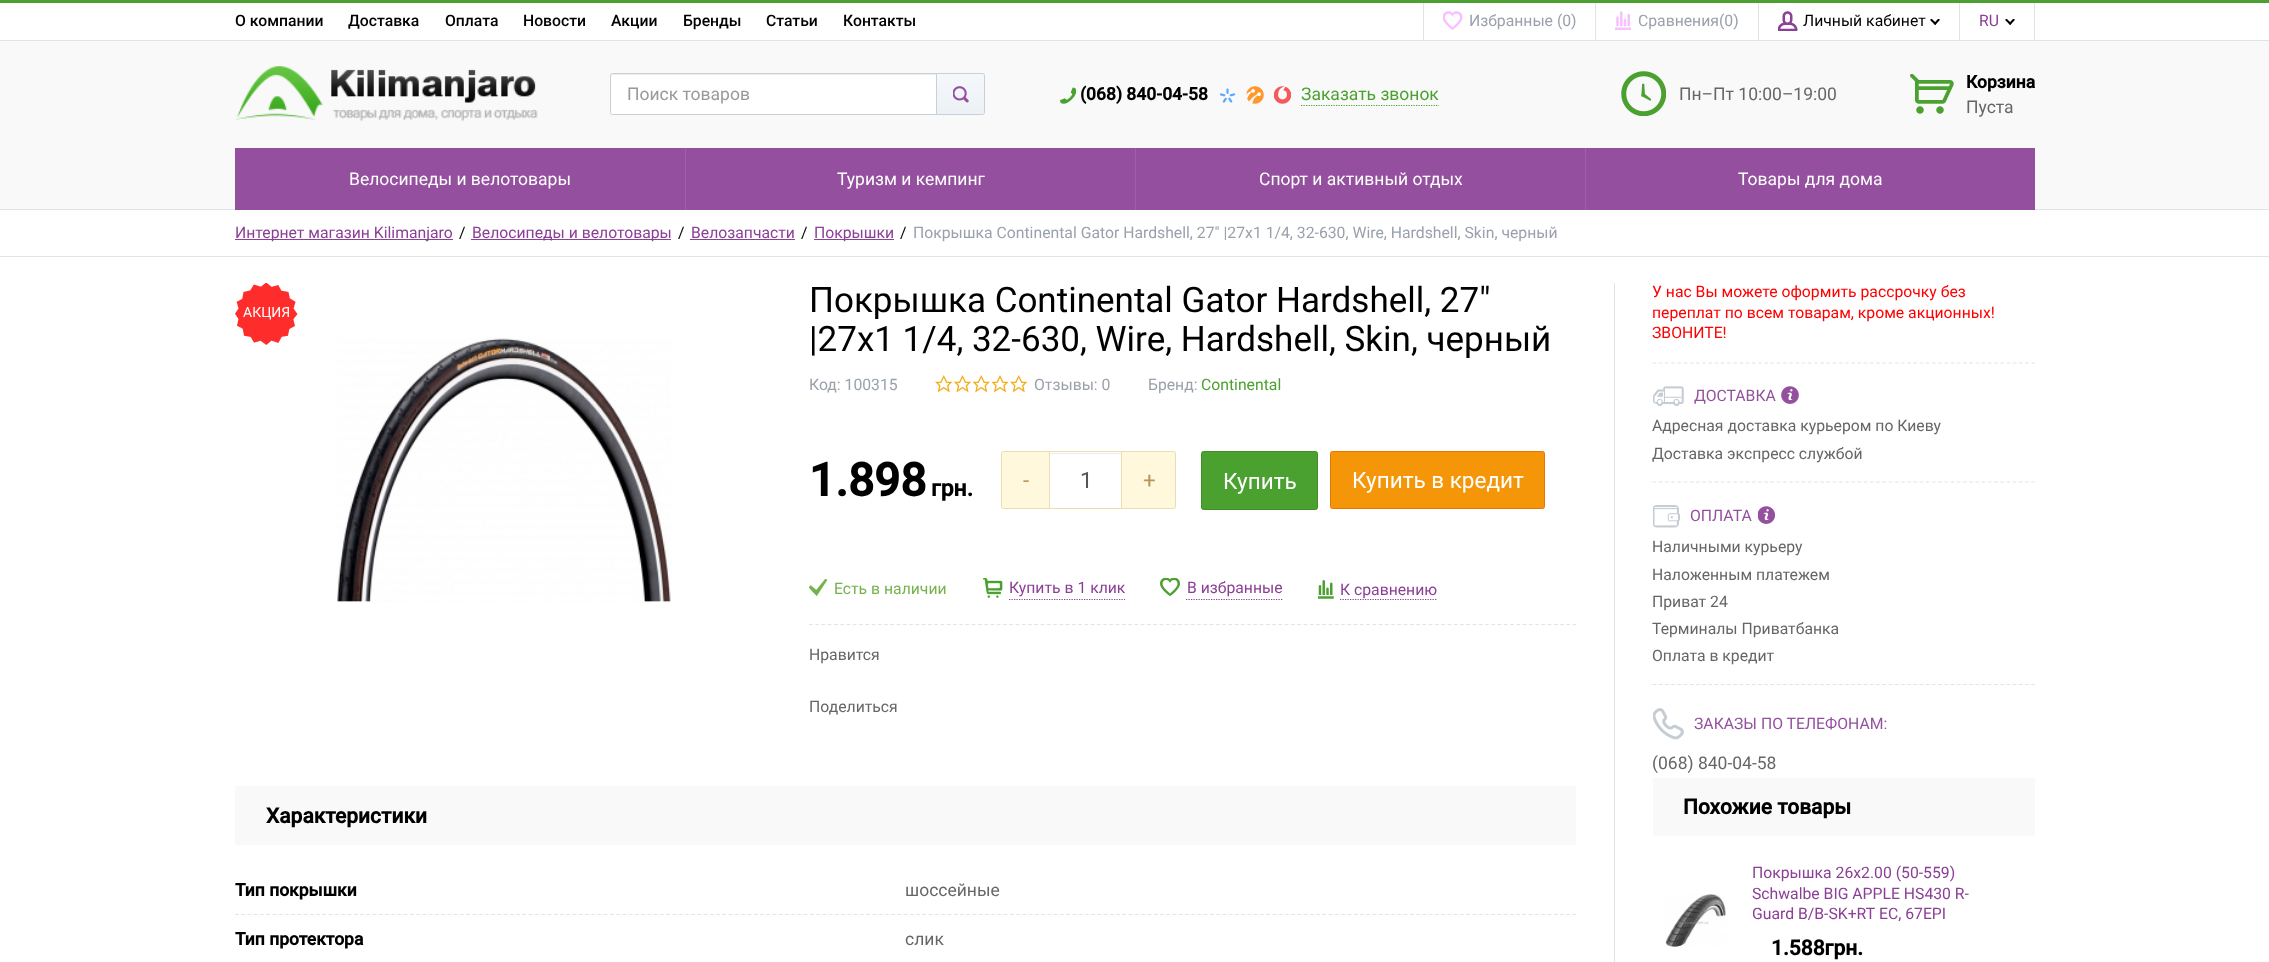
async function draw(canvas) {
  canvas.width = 2269
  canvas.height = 962
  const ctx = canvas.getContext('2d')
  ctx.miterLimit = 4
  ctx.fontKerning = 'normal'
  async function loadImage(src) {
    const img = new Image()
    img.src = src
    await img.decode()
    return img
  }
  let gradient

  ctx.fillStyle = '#fff'
  ctx.fillRect(0, 0, 2269, 962)
  ctx.fillStyle = '#f9f9f9'
  ctx.fillRect(0, 41, 2269, 168)
  ctx.fillStyle = '#dfe4eb'
  ctx.fillRect(0, 209, 2269, 1)
  ctx.fillStyle = '#4ba130'
  ctx.fillRect(0, 0, 2269, 3)
  ctx.fillStyle = '#dfe4eb'
  ctx.fillRect(0, 40, 2269, 1)
  ctx.font = '500 15.75px Roboto'
  ctx.fillStyle = '#000'
  ctx.fillText('О компании', 235, 26)
  ctx.fillText('Доставка', 348, 26)
  ctx.fillText('Оплата', 445, 26)
  ctx.fillText('Новости', 523, 26)
  ctx.fillText('Акции', 611, 26)
  ctx.fillText('Бренды', 683, 26)
  ctx.fillText('Статьи', 766, 26)
  ctx.fillText('Контакты', 843, 26)
  ctx.fillStyle = '#dfe4eb'
  ctx.fillRect(1595, 3, 1, 37)
  ctx.fillRect(1423, 3, 1, 37)
  ctx.drawImage(await loadImage('image0.png'), 1443, 11, 20, 19)
  ctx.font = '15.75px Roboto'
  ctx.fillStyle = '#9aa1ab'
  ctx.fillText('Избранные (0)', 1469, 26)
  ctx.fillStyle = '#dfe4eb'
  ctx.fillRect(1758, 3, 1, 37)
  ctx.drawImage(await loadImage('image1.png'), 1615, 11, 16, 19)
  ctx.fillStyle = '#9aa1ab'
  ctx.fillText('Сравнения(0)', 1638, 26)
  ctx.fillStyle = '#dfe4eb'
  ctx.fillRect(1959, 3, 1, 37)
  ctx.drawImage(await loadImage('image2.png'), 1778, 11, 20, 20)
  ctx.fillStyle = '#000'
  ctx.fillText('Личный кабинет', 1803, 26)
  ctx.drawImage(await loadImage('image3.png'), 1930, 19, 10, 6)
  ctx.fillStyle = '#dfe4eb'
  ctx.fillRect(2034, 3, 1, 37)
  ctx.fillStyle = '#8b3f96'
  ctx.fillText('RU', 1979, 26)
  ctx.drawImage(await loadImage('image3.png'), 2005, 19, 10, 6)
  ctx.drawImage(await loadImage('image4.png'), 235, 66, 303, 56)
  ctx.fillStyle = '#fff'
  ctx.beginPath()
  ctx.roundRect(610, 73, 328, 42, [2.5, 0, 0, 2.5])
  ctx.fill()
  ctx.fillStyle = '#ececec'
  ctx.beginPath()
  ctx.moveTo(612, 75)
  ctx.lineTo(936, 75)
  ctx.lineTo(936, 74)
  ctx.lineTo(611, 74)
  ctx.lineTo(611, 77)
  ctx.closePath()
  ctx.fill()
  ctx.beginPath()
  ctx.roundRect(610.5, 73.5, 327, 41, [2, 0, 0, 2])
  ctx.strokeStyle = '#c8cfd9'
  ctx.stroke()
  ctx.font = '17.5px Roboto'
  ctx.fillStyle = '#999'
  ctx.fillText('Поиск товаров', 627, 100)
  gradient = ctx.createLinearGradient(961, 74, 961, 114)
  gradient.addColorStop(0, '#f5f8fb')
  gradient.addColorStop(1, '#ecf1f6')
  ctx.fillStyle = gradient
  ctx.fillRect(937, 74, 48, 40)
  ctx.beginPath()
  ctx.roundRect(936.5, 73.5, 48, 41, [0, 2, 2, 0])
  ctx.stroke()
  ctx.drawImage(await loadImage('image5.png'), 953, 86, 16, 17)
  ctx.drawImage(await loadImage('image6.png'), 1060, 87, 16, 17)
  ctx.font = 'bold 17.5px Roboto'
  ctx.fillStyle = '#000'
  ctx.fillText('(068) 840-04-58', 1080, 100)
  ctx.drawImage(await loadImage('image7.png'), 1219, 88, 17, 15)
  ctx.drawImage(await loadImage('image8.png'), 1246, 86, 18, 18)
  ctx.drawImage(await loadImage('image9.png'), 1274, 86, 17, 18)
  ctx.beginPath()
  ctx.moveTo(1301, 105.5)
  ctx.lineTo(1439, 105.5)
  ctx.strokeStyle = '#4ba130'
  ctx.lineWidth = 1.2
  ctx.setLineDash([1.25, 1.25])
  ctx.stroke()
  ctx.font = '17.5px Roboto'
  ctx.fillStyle = '#4ba130'
  ctx.fillText('Заказать звонок', 1301, 100)
  ctx.drawImage(await loadImage('image10.png'), 1621, 71, 45, 45)
  ctx.fillStyle = '#666'
  ctx.fillText('Пн–Пт 10:00–19:00', 1679, 100)
  ctx.drawImage(await loadImage('image11.png'), 1910, 74, 44, 40)
  ctx.font = 'bold 17.5px Roboto'
  ctx.fillStyle = '#000'
  ctx.fillText('Корзина', 1966, 88)
  ctx.font = '17.5px Roboto'
  ctx.fillStyle = '#666'
  ctx.fillText('Пуста', 1966, 113)
  ctx.fillStyle = '#94509e'
  ctx.fillRect(235, 148, 450, 62)
  ctx.fillStyle = '#fff'
  ctx.fillText('Велосипеды и велотовары', 349, 185)
  ctx.fillStyle = '#94509e'
  ctx.fillRect(686, 148, 449, 62)
  ctx.fillStyle = '#a45dae'
  ctx.fillRect(685, 148, 1, 62)
  ctx.fillStyle = '#fff'
  ctx.fillText('Туризм и кемпинг', 837, 185)
  ctx.fillStyle = '#94509e'
  ctx.fillRect(1136, 148, 449, 62)
  ctx.fillStyle = '#a45dae'
  ctx.fillRect(1135, 148, 1, 62)
  ctx.fillStyle = '#fff'
  ctx.fillText('Спорт и активный отдых', 1259, 185)
  ctx.fillStyle = '#94509e'
  ctx.fillRect(1586, 148, 449, 62)
  ctx.fillStyle = '#a45dae'
  ctx.fillRect(1585, 148, 1, 62)
  ctx.fillStyle = '#fff'
  ctx.fillText('Товары для дома', 1738, 185)
  ctx.fillStyle = '#dfe4eb'
  ctx.fillRect(0, 256, 2269, 1)
  ctx.fillStyle = '#8b3f96'
  ctx.fillRect(235, 239, 218, 1)
  ctx.font = '15.75px Roboto'
  ctx.fillText('Интернет магазин Kilimanjaro', 235, 238)
  ctx.fillStyle = '#000'
  ctx.fillText('/', 459, 238)
  ctx.fillStyle = '#8b3f96'
  ctx.fillRect(471, 239, 200, 1)
  ctx.fillText('Велосипеды и велотовары', 472, 238)
  ctx.fillStyle = '#000'
  ctx.fillText('/', 678, 238)
  ctx.fillStyle = '#8b3f96'
  ctx.fillText('Велозапчасти', 691, 238)
  ctx.fillRect(690, 239, 105, 1)
  ctx.fillStyle = '#000'
  ctx.fillText('/', 801, 238)
  ctx.fillStyle = '#8b3f96'
  ctx.fillRect(814, 239, 80, 1)
  ctx.fillText('Покрышки', 814, 238)
  ctx.fillStyle = '#000'
  ctx.fillText('/', 900, 238)
  ctx.fillStyle = '#9aa1ab'
  ctx.fillText('Покрышка Continental Gator Hardshell, 27" |27x1 1/4, 32-630, Wire, Hardshell, Skin, черный', 913, 238)
  ctx.drawImage(await loadImage('image12.png'), 235, 283, 63, 62)
  ctx.font = '14px Roboto'
  ctx.fillStyle = '#fff'
  ctx.fillText('АКЦИЯ', 243, 317)
  ctx.drawImage(await loadImage('image13.png'), 337, 338, 334, 265)
  ctx.font = '35px Roboto'
  ctx.fillStyle = '#000'
  ctx.fillText('Покрышка Continental Gator Hardshell, 27"', 809, 312)
  ctx.fillText('|27x1 1/4, 32-630, Wire, Hardshell, Skin, черный', 809, 351)
  ctx.font = '15.75px Roboto'
  ctx.fillStyle = '#9aa1ab'
  ctx.fillText('Код: 100315', 809, 390)
  ctx.drawImage(await loadImage('image14.png'), 935, 375, 18, 18)
  ctx.drawImage(await loadImage('image15.png'), 954, 375, 17, 18)
  ctx.drawImage(await loadImage('image16.png'), 973, 375, 17, 18)
  ctx.drawImage(await loadImage('image17.png'), 991, 375, 18, 18)
  ctx.drawImage(await loadImage('image14.png'), 1010, 375, 18, 18)
  ctx.fillText('Отзывы: 0', 1034, 390)
  ctx.fillText('Бренд:', 1148, 390)
  ctx.fillStyle = '#4ba130'
  ctx.fillText('Continental', 1201, 390)
  ctx.font = 'bold 46px Roboto'
  ctx.fillStyle = '#000'
  ctx.fillText('1.898', 809, 496)
  ctx.font = 'bold 23px Roboto'
  ctx.fillText('грн.', 931, 496)
  ctx.fillStyle = '#fff8dd'
  ctx.beginPath()
  ctx.roundRect(1001.5, 451.5, 48, 57, [2, 0, 0, 2])
  ctx.fill()
  ctx.strokeStyle = '#eedbb2'
  ctx.lineWidth = 1
  ctx.setLineDash([])
  ctx.stroke()
  ctx.font = '22.5px Roboto'
  ctx.fillStyle = '#ba9659'
  ctx.fillText('-', 1023, 488)
  ctx.fillStyle = '#ececec'
  ctx.fillRect(1050, 453, 71, 1)
  ctx.strokeRect(1049.5, 451.5, 73, 57)
  ctx.fillStyle = '#555'
  ctx.fillText('1', 1080, 488)
  ctx.fillStyle = '#fff8dd'
  ctx.beginPath()
  ctx.roundRect(1121.5, 451.5, 54, 57, [0, 2, 2, 0])
  ctx.fill()
  ctx.stroke()
  ctx.fillStyle = '#ba9659'
  ctx.fillText('+', 1143, 488)
  ctx.fillStyle = '#4ba130'
  ctx.beginPath()
  ctx.roundRect(1201.5, 451.5, 116, 58, 2)
  ctx.fill()
  ctx.strokeStyle = '#428d2a'
  ctx.stroke()
  ctx.fillStyle = '#fff'
  ctx.fillText('Купить', 1223, 489)
  ctx.fillStyle = '#f59609'
  ctx.beginPath()
  ctx.roundRect(1330.5, 451.5, 214, 57, 2)
  ctx.fill()
  ctx.strokeStyle = '#e67700'
  ctx.stroke()
  ctx.fillStyle = '#fff'
  ctx.fillText('Купить в кредит', 1352, 488)
  ctx.drawImage(await loadImage('image18.png'), 809, 579, 19, 17)
  ctx.font = '15.75px Roboto'
  ctx.fillStyle = '#75b24d'
  ctx.fillText('Есть в наличии', 834, 594)
  ctx.drawImage(await loadImage('image19.png'), 983, 578, 20, 20)
  ctx.beginPath()
  ctx.moveTo(1009, 599.5)
  ctx.lineTo(1125, 599.5)
  ctx.strokeStyle = '#8b3f96'
  ctx.lineWidth = 1.2
  ctx.setLineDash([1.25, 1.25])
  ctx.stroke()
  ctx.fillStyle = '#8b3f96'
  ctx.fillText('Купить в 1 клик', 1009, 593)
  ctx.drawImage(await loadImage('image20.png'), 1160, 578, 20, 18)
  ctx.beginPath()
  ctx.moveTo(1186, 599.5)
  ctx.lineTo(1282.5, 599.5)
  ctx.stroke()
  ctx.fillText('В избранные', 1187, 593)
  ctx.drawImage(await loadImage('image21.png'), 1318, 580, 16, 19)
  ctx.beginPath()
  ctx.moveTo(1340, 599.5)
  ctx.lineTo(1437.5, 599.5)
  ctx.stroke()
  ctx.fillText('К сравнению', 1340, 595)
  ctx.beginPath()
  ctx.moveTo(809, 624.5)
  ctx.lineTo(1576, 624.5)
  ctx.strokeStyle = '#dfe4eb'
  ctx.setLineDash([3.75, 2.51])
  ctx.stroke()
  ctx.fillStyle = '#666'
  ctx.fillText('Нравится', 809, 660)
  ctx.fillText('Поделиться', 809, 712)
  ctx.fillStyle = '#f9f9f9'
  ctx.fillRect(235, 786, 1341, 59)
  ctx.font = 'bold 21px Roboto'
  ctx.fillStyle = '#000'
  ctx.fillText('Характеристики', 266, 823)
  ctx.font = 'bold 17.5px Roboto'
  ctx.fillText('Тип покрышки', 235, 896)
  ctx.font = '17.5px Roboto'
  ctx.fillStyle = '#666'
  ctx.fillText('шоссейные', 905, 896)
  ctx.beginPath()
  ctx.moveTo(235, 914.5)
  ctx.lineTo(1576, 914.5)
  ctx.setLineDash([3.75, 2.5])
  ctx.stroke()
  ctx.font = 'bold 17.5px Roboto'
  ctx.fillStyle = '#000'
  ctx.fillText('Тип протектора', 235, 945)
  ctx.font = '17.5px Roboto'
  ctx.fillStyle = '#666'
  ctx.fillText('слик', 905, 945)
  ctx.fillStyle = '#dfe4eb'
  ctx.fillRect(1614, 283, 1, 679)
  ctx.beginPath()
  ctx.moveTo(1652.5, 363)
  ctx.lineTo(2035, 363)
  ctx.setLineDash([3.75, 2.46])
  ctx.stroke()
  ctx.font = '15.75px Roboto'
  ctx.fillStyle = '#f00'
  ctx.fillText('У нас Вы можете оформить рассрочку без', 1652, 297)
  ctx.fillText('переплат по всем товарам, кроме акционных!', 1652, 318)
  ctx.fillText('ЗВОНИТЕ!', 1652, 338)
  ctx.beginPath()
  ctx.moveTo(1652.5, 482)
  ctx.lineTo(2035, 482)
  ctx.stroke()
  ctx.drawImage(await loadImage('image22.png'), 1653, 386, 31, 20)
  ctx.fillStyle = '#94509e'
  ctx.fillText('ДОСТАВКА', 1694, 401)
  ctx.drawImage(await loadImage('image23.png'), 1781, 386, 18, 18)
  ctx.fillStyle = '#666'
  ctx.fillText('Адресная доставка курьером по Киеву', 1652, 431)
  ctx.fillText('Доставка экспресс службой', 1652, 459)
  ctx.beginPath()
  ctx.moveTo(1652.5, 684.5)
  ctx.lineTo(2035, 684.5)
  ctx.stroke()
  ctx.drawImage(await loadImage('image24.png'), 1653, 505, 27, 23)
  ctx.fillStyle = '#94509e'
  ctx.fillText('ОПЛАТА', 1690, 521)
  ctx.drawImage(await loadImage('image25.png'), 1758, 506, 17, 18)
  ctx.fillStyle = '#666'
  ctx.fillText('Наличными курьеру', 1652, 552)
  ctx.fillText('Наложенным платежем', 1652, 580)
  ctx.fillText('Приват 24', 1652, 607)
  ctx.fillText('Терминалы Приватбанка', 1652, 634)
  ctx.fillText('Оплата в кредит', 1652, 661)
  ctx.drawImage(await loadImage('image26.png'), 1653, 708, 31, 32)
  ctx.fillStyle = '#94509e'
  ctx.fillText('ЗАКАЗЫ ПО ТЕЛЕФОНАМ:', 1694, 729)
  ctx.font = '17.5px Roboto'
  ctx.fillStyle = '#666'
  ctx.fillText('(068) 840-04-58', 1652, 769)
  ctx.fillStyle = '#f9f9f9'
  ctx.fillRect(1653, 778, 382, 58)
  ctx.font = 'bold 21px Roboto'
  ctx.fillStyle = '#000'
  ctx.fillText('Похожие товары', 1683, 814)
  ctx.drawImage(await loadImage('image27.png'), 1665, 894, 61, 53)
  ctx.font = '15.75px Roboto'
  ctx.fillStyle = '#8b3f96'
  ctx.fillText('Покрышка 26x2.00 (50-559)', 1752, 878)
  ctx.fillText('Schwalbe BIG APPLE HS430 R-', 1752, 899)
  ctx.fillText('Guard B/B-SK+RT EC, 67EPI', 1752, 919)
  ctx.font = 'bold 21px Roboto'
  ctx.fillStyle = '#000'
  ctx.fillText('1.588грн.', 1771, 955)
}

draw(document.querySelector('canvas'))
